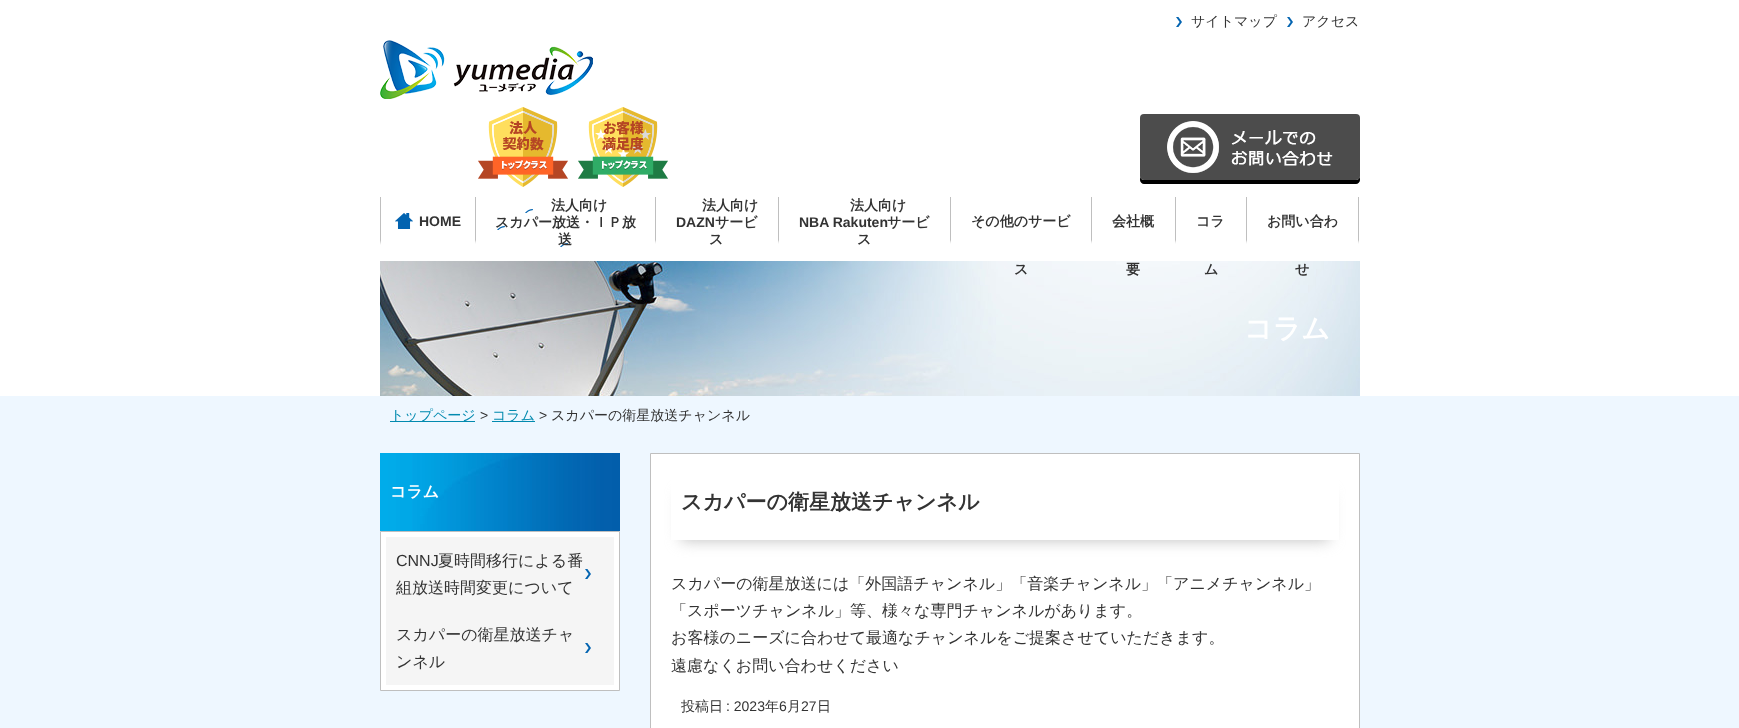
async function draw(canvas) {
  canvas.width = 1739
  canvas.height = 728
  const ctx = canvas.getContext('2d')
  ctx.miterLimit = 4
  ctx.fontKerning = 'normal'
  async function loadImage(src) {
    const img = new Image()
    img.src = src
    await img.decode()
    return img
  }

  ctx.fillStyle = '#fff'
  ctx.fillRect(0, 0, 1739, 728)
  ctx.drawImage(await loadImage('image0.png'), 1176, 17, 6, 10)
  ctx.font = '500 14px WenQuanYi Zen Hei'
  ctx.fillStyle = '#333'
  ctx.fillText('サイトマップ', 1191, 26)
  ctx.drawImage(await loadImage('image0.png'), 1287, 17, 6, 10)
  ctx.fillText('アクセス', 1302, 26)
  ctx.drawImage(await loadImage('image1.png'), 380, 40, 213, 59)
  ctx.drawImage(await loadImage('image2.png'), 478, 107, 90, 80)
  ctx.drawImage(await loadImage('image3.png'), 578, 107, 90, 80)
  ctx.fillStyle = '#000'
  ctx.beginPath()
  ctx.moveTo(1140, 176)
  ctx.lineTo(1140, 180)
  ctx.bezierCurveTo(1140, 182, 1142, 184, 1144, 184)
  ctx.lineTo(1356, 184)
  ctx.bezierCurveTo(1358, 184, 1360, 182, 1360, 180)
  ctx.lineTo(1360, 176)
  ctx.bezierCurveTo(1360, 178, 1358, 180, 1356, 180)
  ctx.lineTo(1144, 180)
  ctx.bezierCurveTo(1142, 180, 1140, 178, 1140, 176)
  ctx.closePath()
  ctx.fill()
  ctx.fillStyle = '#4c4c4c'
  ctx.beginPath()
  ctx.roundRect(1140, 114, 220, 66, 4)
  ctx.fill()
  ctx.drawImage(await loadImage('image4.png'), 1167, 121, 166, 52)
  ctx.fillStyle = '#bfbfbf'
  ctx.beginPath()
  ctx.moveTo(476, 197)
  ctx.lineTo(476, 245)
  ctx.lineTo(475, 240)
  ctx.lineTo(475, 197)
  ctx.closePath()
  ctx.fill()
  ctx.fillStyle = '#fff'
  ctx.beginPath()
  ctx.moveTo(476, 245)
  ctx.lineTo(380, 245)
  ctx.lineTo(381, 240)
  ctx.lineTo(475, 240)
  ctx.closePath()
  ctx.fill()
  ctx.fillStyle = '#bfbfbf'
  ctx.beginPath()
  ctx.moveTo(380, 245)
  ctx.lineTo(380, 197)
  ctx.lineTo(381, 197)
  ctx.lineTo(381, 240)
  ctx.closePath()
  ctx.fill()
  ctx.drawImage(await loadImage('image5.png'), 395, 213, 18, 16)
  ctx.font = 'bold 14px Liberation Sans'
  ctx.fillStyle = '#333'
  ctx.fillText('HOME', 419, 226)
  ctx.fillStyle = '#bfbfbf'
  ctx.beginPath()
  ctx.moveTo(656, 197)
  ctx.lineTo(656, 245)
  ctx.lineTo(655, 240)
  ctx.lineTo(655, 197)
  ctx.closePath()
  ctx.fill()
  ctx.fillStyle = '#fff'
  ctx.beginPath()
  ctx.moveTo(656, 245)
  ctx.lineTo(476, 245)
  ctx.lineTo(476, 240)
  ctx.lineTo(655, 240)
  ctx.closePath()
  ctx.fill()
  ctx.drawImage(await loadImage('image6.png'), 497, 209, 71, 38)
  ctx.font = 'bold 14px WenQuanYi Zen Hei'
  ctx.fillStyle = '#333'
  ctx.fillText('法人向け', 551, 210)
  ctx.fillText('スカパー放送・ＩＰ放', 495, 227)
  ctx.fillText('送', 558, 244)
  ctx.fillStyle = '#bfbfbf'
  ctx.beginPath()
  ctx.moveTo(779, 197)
  ctx.lineTo(779, 245)
  ctx.lineTo(778, 240)
  ctx.lineTo(778, 197)
  ctx.closePath()
  ctx.fill()
  ctx.fillStyle = '#fff'
  ctx.beginPath()
  ctx.moveTo(779, 245)
  ctx.lineTo(656, 245)
  ctx.lineTo(656, 240)
  ctx.lineTo(778, 240)
  ctx.closePath()
  ctx.fill()
  ctx.fillStyle = '#333'
  ctx.fillText('法人向け', 702, 210)
  ctx.font = 'bold 14px Liberation Sans'
  ctx.fillText('DAZN', 676, 227)
  ctx.font = 'bold 14px WenQuanYi Zen Hei'
  ctx.fillText('サービ', 715, 227)
  ctx.fillText('ス', 709, 244)
  ctx.fillStyle = '#bfbfbf'
  ctx.beginPath()
  ctx.moveTo(951, 197)
  ctx.lineTo(951, 245)
  ctx.lineTo(950, 240)
  ctx.lineTo(950, 197)
  ctx.closePath()
  ctx.fill()
  ctx.fillStyle = '#fff'
  ctx.beginPath()
  ctx.moveTo(951, 245)
  ctx.lineTo(779, 245)
  ctx.lineTo(779, 240)
  ctx.lineTo(950, 240)
  ctx.closePath()
  ctx.fill()
  ctx.fillStyle = '#333'
  ctx.fillText('法人向け', 850, 210)
  ctx.font = 'bold 14px Liberation Sans'
  ctx.fillText('NBA Rakuten', 799, 227)
  ctx.font = 'bold 14px WenQuanYi Zen Hei'
  ctx.fillText('サービ', 887, 227)
  ctx.fillText('ス', 857, 244)
  ctx.fillStyle = '#bfbfbf'
  ctx.beginPath()
  ctx.moveTo(1092, 197)
  ctx.lineTo(1092, 245)
  ctx.lineTo(1091, 240)
  ctx.lineTo(1091, 197)
  ctx.closePath()
  ctx.fill()
  ctx.fillStyle = '#fff'
  ctx.beginPath()
  ctx.moveTo(1092, 245)
  ctx.lineTo(951, 245)
  ctx.lineTo(951, 240)
  ctx.lineTo(1091, 240)
  ctx.closePath()
  ctx.fill()
  ctx.fillStyle = '#333'
  ctx.fillText('その他のサービ', 971, 226)
  ctx.drawImage(await loadImage('image7.png'), 380, 261, 980, 135)
  ctx.fillText('ス', 1014, 274)
  ctx.fillStyle = '#bfbfbf'
  ctx.beginPath()
  ctx.moveTo(1176, 197)
  ctx.lineTo(1176, 245)
  ctx.lineTo(1175, 240)
  ctx.lineTo(1175, 197)
  ctx.closePath()
  ctx.fill()
  ctx.fillStyle = '#fff'
  ctx.beginPath()
  ctx.moveTo(1176, 245)
  ctx.lineTo(1092, 245)
  ctx.lineTo(1092, 240)
  ctx.lineTo(1175, 240)
  ctx.closePath()
  ctx.fill()
  ctx.fillStyle = '#333'
  ctx.fillText('会社概', 1112, 226)
  ctx.fillText('要', 1126, 274)
  ctx.fillStyle = '#bfbfbf'
  ctx.beginPath()
  ctx.moveTo(1247, 197)
  ctx.lineTo(1247, 245)
  ctx.lineTo(1246, 240)
  ctx.lineTo(1246, 197)
  ctx.closePath()
  ctx.fill()
  ctx.fillStyle = '#fff'
  ctx.beginPath()
  ctx.moveTo(1247, 245)
  ctx.lineTo(1176, 245)
  ctx.lineTo(1176, 240)
  ctx.lineTo(1246, 240)
  ctx.closePath()
  ctx.fill()
  ctx.fillStyle = '#333'
  ctx.fillText('コラ', 1196, 226)
  ctx.fillText('ム', 1204, 274)
  ctx.fillStyle = '#bfbfbf'
  ctx.beginPath()
  ctx.moveTo(1359, 197)
  ctx.lineTo(1359, 245)
  ctx.lineTo(1358, 240)
  ctx.lineTo(1358, 197)
  ctx.closePath()
  ctx.fill()
  ctx.fillStyle = '#fff'
  ctx.beginPath()
  ctx.moveTo(1359, 245)
  ctx.lineTo(1247, 245)
  ctx.lineTo(1247, 240)
  ctx.lineTo(1358, 240)
  ctx.closePath()
  ctx.fill()
  ctx.fillStyle = '#333'
  ctx.fillText('お問い合わ', 1267, 226)
  ctx.fillText('せ', 1295, 274)
  ctx.font = 'bold 28px WenQuanYi Zen Hei'
  ctx.fillStyle = '#fff'
  ctx.fillText('コラム', 1244, 338)
  ctx.fillStyle = '#eef7ff'
  ctx.fillRect(0, 396, 1739, 332)
  ctx.fillStyle = '#028aaf'
  ctx.fillRect(390, 421, 85, 1)
  ctx.font = '500 14px WenQuanYi Zen Hei'
  ctx.fillText('トップページ', 390, 420)
  ctx.font = '14px Liberation Sans'
  ctx.fillStyle = '#333'
  ctx.fillText('>', 480, 420)
  ctx.fillStyle = '#028aaf'
  ctx.fillRect(492, 421, 43, 1)
  ctx.font = '500 14px WenQuanYi Zen Hei'
  ctx.fillText('コラム', 492, 420)
  ctx.font = '14px Liberation Sans'
  ctx.fillStyle = '#333'
  ctx.fillText('>', 539, 420)
  ctx.font = '500 14px WenQuanYi Zen Hei'
  ctx.fillText('スカパーの衛星放送チャンネル', 551, 420)
  ctx.drawImage(await loadImage('image8.png'), 380, 453, 240, 78)
  ctx.font = 'bold 16px WenQuanYi Zen Hei'
  ctx.fillStyle = '#fff'
  ctx.fillText('コラム', 390, 497)
  ctx.beginPath()
  ctx.rect(380.5, 531.5, 239, 159)
  ctx.fill()
  ctx.strokeStyle = '#bfbfbf'
  ctx.stroke()
  ctx.fillStyle = '#f5f5f5'
  ctx.fillRect(386, 537, 228, 148)
  ctx.drawImage(await loadImage('image9.png'), 585, 569, 6, 10)
  ctx.font = '16px Liberation Sans'
  ctx.fillStyle = '#333'
  ctx.fillText('CNNJ', 396, 566)
  ctx.font = '500 16px WenQuanYi Zen Hei'
  ctx.fillText('夏時間移行による番', 438, 566)
  ctx.fillText('組放送時間変更について', 396, 593)
  ctx.drawImage(await loadImage('image9.png'), 585, 643, 6, 10)
  ctx.fillText('スカパーの衛星放送チャ', 396, 640)
  ctx.fillText('ンネル', 396, 667)
  ctx.fillStyle = '#fff'
  ctx.beginPath()
  ctx.rect(650.5, 453.5, 709, 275)
  ctx.fill()
  ctx.stroke()
  ctx.save()
  ctx.beginPath()
  ctx.moveTo(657, 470)
  ctx.lineTo(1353, 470)
  ctx.lineTo(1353, 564)
  ctx.lineTo(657, 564)
  ctx.closePath()
  ctx.moveTo(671, 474)
  ctx.lineTo(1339, 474)
  ctx.lineTo(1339, 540)
  ctx.lineTo(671, 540)
  ctx.closePath()
  ctx.clip('evenodd')
  ctx.fillStyle = '#bdbdbd'
  ctx.filter = 'blur(7.5px)'
  ctx.beginPath()
  ctx.rect(681, 494, 648, 46)
  ctx.fill()
  ctx.filter = 'none'
  ctx.restore()
  ctx.font = 'bold 21px WenQuanYi Zen Hei'
  ctx.fillStyle = '#333'
  ctx.fillText('スカパーの衛星放送チャンネル', 681, 509)
  ctx.font = '500 16px WenQuanYi Zen Hei'
  ctx.fillText('スカパーの衛星放送には「外国語チャンネル」「音楽チャンネル」「アニメチャンネル」', 671, 589)
  ctx.fillText('「スポーツチャンネル」等、様々な専門チャンネルがあります。', 671, 616)
  ctx.fillText('お客様のニーズに合わせて最適なチャンネルをご提案させていただきます。', 671, 643)
  ctx.fillText('遠慮なくお問い合わせください', 671, 671)
  ctx.font = '500 14px WenQuanYi Zen Hei'
  ctx.fillText('投稿日', 681, 711)
  ctx.font = '14px Liberation Sans'
  ctx.fillText(': 2023', 726, 711)
  ctx.font = '500 14px WenQuanYi Zen Hei'
  ctx.fillText('年', 765, 711)
  ctx.font = '14px Liberation Sans'
  ctx.fillText('6', 779, 711)
  ctx.font = '500 14px WenQuanYi Zen Hei'
  ctx.fillText('月', 787, 711)
  ctx.font = '14px Liberation Sans'
  ctx.fillText('27', 801, 711)
  ctx.font = '500 14px WenQuanYi Zen Hei'
  ctx.fillText('日', 817, 711)
}

draw(document.querySelector('canvas'))
